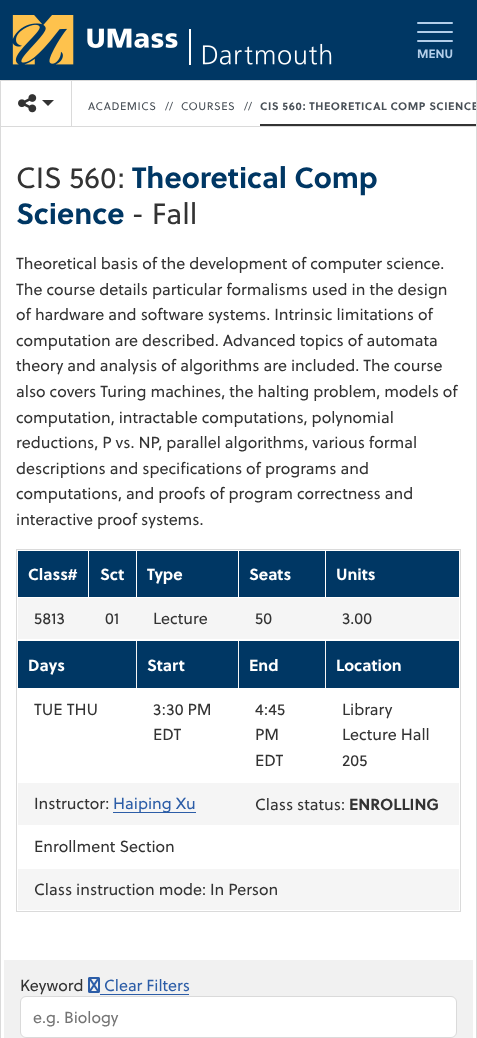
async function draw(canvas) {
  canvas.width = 477
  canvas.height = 1038
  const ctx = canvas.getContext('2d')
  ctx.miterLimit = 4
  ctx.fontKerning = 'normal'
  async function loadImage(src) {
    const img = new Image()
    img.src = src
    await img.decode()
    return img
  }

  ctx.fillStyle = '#dadada'
  ctx.fillRect(0, 0, 477, 1038)
  ctx.fillStyle = '#003764'
  ctx.fillRect(0, 0, 477, 80)
  ctx.drawImage(await loadImage('image0.png'), 12, 15, 320, 50)
  ctx.fillStyle = '#b3cee9'
  ctx.beginPath()
  ctx.roundRect(417, 22, 36, 2, 1)
  ctx.fill()
  ctx.beginPath()
  ctx.roundRect(417, 31, 36, 2, 1)
  ctx.fill()
  ctx.beginPath()
  ctx.roundRect(417, 40, 36, 2, 1)
  ctx.fill()
  ctx.font = 'bold 12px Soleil'
  ctx.fillText('MENU', 417, 58)
  ctx.fillStyle = '#fff'
  ctx.fillRect(1, 81, 475, 45)
  ctx.fillStyle = '#dadada'
  ctx.fillRect(71, 81, 1, 45)
  ctx.drawImage(await loadImage('image1.png'), 18, 94, 19, 19)
  ctx.fillStyle = '#333'
  ctx.beginPath()
  ctx.moveTo(42, 100)
  ctx.lineTo(54, 100)
  ctx.lineTo(48, 106)
  ctx.closePath()
  ctx.fill()
  ctx.letterSpacing = '0.55px'
  ctx.font = '11px Soleil'
  ctx.fillStyle = '#495057'
  ctx.fillText('ACADEMICS', 88, 110)
  ctx.fillText('//', 165, 110)
  ctx.fillText('COURSES', 181, 110)
  ctx.fillText('//', 244, 110)
  ctx.save()
  ctx.beginPath()
  ctx.rect(72, 81, 404, 45)
  ctx.clip()
  ctx.font = 'bold 11px Soleil'
  ctx.fillText('CIS 560: THEORETICAL COMP SCIENCE', 260, 110)
  ctx.restore()
  ctx.fillStyle = '#333'
  ctx.fillRect(260, 124, 216, 2)
  ctx.fillStyle = '#fff'
  ctx.fillRect(1, 127, 475, 911)
  ctx.letterSpacing = '0px'
  ctx.font = '29.25px Soleil'
  ctx.fillStyle = '#333'
  ctx.fillText('CIS 560:', 16, 188)
  ctx.font = 'bold 29.25px Soleil'
  ctx.fillStyle = '#003764'
  ctx.fillText('Theoretical Comp', 132, 188)
  ctx.fillText('Science', 16, 224)
  ctx.font = '29.25px Soleil'
  ctx.fillStyle = '#333'
  ctx.fillText('- Fall', 131, 224)
  ctx.font = '16px Soleil'
  ctx.fillText('Theoretical basis of the development of computer science.', 16, 269)
  ctx.fillText('The course details particular formalisms used in the design', 16, 295)
  ctx.fillText('of hardware and software systems. Intrinsic limitations of', 16, 320)
  ctx.fillText('computation are described. Advanced topics of automata', 16, 346)
  ctx.fillText('theory and analysis of algorithms are included. The course', 16, 371)
  ctx.fillText('also covers Turing machines, the halting problem, models of', 16, 397)
  ctx.fillText('computation, intractable computations, polynomial', 16, 423)
  ctx.fillText('reductions, P vs. NP, parallel algorithms, various formal', 16, 448)
  ctx.fillText('descriptions and specifications of programs and', 16, 474)
  ctx.fillText('computations, and proofs of program correctness and', 16, 499)
  ctx.fillText('interactive proof systems.', 16, 525)
  ctx.strokeStyle = '#dadada'
  ctx.strokeRect(16.5, 549.5, 444, 362)
  ctx.fillStyle = '#003764'
  ctx.fillRect(18, 551, 70, 46)
  ctx.font = 'bold 16px Soleil'
  ctx.fillStyle = '#fff'
  ctx.fillText('Class#', 28, 580)
  ctx.fillStyle = '#003764'
  ctx.fillRect(89, 551, 47, 46)
  ctx.fillStyle = '#fff'
  ctx.fillText('Sct', 100, 580)
  ctx.fillStyle = '#003764'
  ctx.fillRect(137, 551, 101, 46)
  ctx.fillStyle = '#fff'
  ctx.fillText('Type', 147, 580)
  ctx.fillStyle = '#003764'
  ctx.fillRect(239, 551, 86, 46)
  ctx.fillStyle = '#fff'
  ctx.fillText('Seats', 249, 580)
  ctx.fillStyle = '#003764'
  ctx.fillRect(326, 551, 133, 46)
  ctx.fillStyle = '#fff'
  ctx.fillText('Units', 336, 580)
  ctx.fillStyle = '#f5f5f5'
  ctx.fillRect(18, 598, 441, 41)
  ctx.font = '16px Soleil'
  ctx.fillStyle = '#333'
  ctx.fillText('5813', 34, 624)
  ctx.fillText('01', 105, 624)
  ctx.fillText('Lecture', 153, 624)
  ctx.fillText('50', 255, 624)
  ctx.fillText('3.00', 342, 624)
  ctx.fillStyle = '#f5f5f5'
  ctx.fillRect(136, 641, 190, 47)
  ctx.fillStyle = '#003764'
  ctx.fillRect(18, 641, 118, 47)
  ctx.font = 'bold 16px Soleil'
  ctx.fillStyle = '#fff'
  ctx.fillText('Days', 28, 671)
  ctx.fillStyle = '#003764'
  ctx.fillRect(137, 641, 101, 47)
  ctx.fillStyle = '#fff'
  ctx.fillText('Start', 147, 671)
  ctx.fillStyle = '#003764'
  ctx.fillRect(239, 641, 86, 47)
  ctx.fillStyle = '#fff'
  ctx.fillText('End', 249, 671)
  ctx.fillStyle = '#003764'
  ctx.fillRect(326, 641, 133, 47)
  ctx.fillStyle = '#fff'
  ctx.fillText('Location', 336, 671)
  ctx.font = '16px Soleil'
  ctx.fillStyle = '#333'
  ctx.fillText('TUE THU', 34, 715)
  ctx.fillText('3:30 PM', 153, 715)
  ctx.fillText('EDT', 153, 740)
  ctx.fillText('4:45', 255, 715)
  ctx.fillText('PM', 255, 740)
  ctx.fillText('EDT', 255, 766)
  ctx.fillText('Library', 342, 715)
  ctx.fillText('Lecture Hall', 342, 740)
  ctx.fillText('205', 342, 766)
  ctx.fillStyle = '#f5f5f5'
  ctx.fillRect(18, 783, 441, 42)
  ctx.fillStyle = '#333'
  ctx.fillText('Instructor:', 34, 809)
  ctx.fillStyle = '#2c5da7'
  ctx.fillRect(113, 812, 83, 1)
  ctx.fillText('Haiping Xu', 113, 809)
  ctx.fillStyle = '#333'
  ctx.fillText('Class status:', 255, 810)
  ctx.font = 'bold 16px Soleil'
  ctx.fillText('ENROLLING', 349, 810)
  ctx.font = '16px Soleil'
  ctx.fillText('Enrollment Section', 34, 852)
  ctx.fillStyle = '#f5f5f5'
  ctx.fillRect(18, 869, 441, 41)
  ctx.fillStyle = '#333'
  ctx.fillText('Class instruction mode: In Person', 34, 895)
  ctx.fillStyle = '#f1f1f1'
  ctx.fillRect(4, 960, 469, 78)
  ctx.fillStyle = '#333'
  ctx.fillText('Keyword', 20, 991)
  ctx.drawImage(await loadImage('image2.png'), 88, 977, 12, 16)
  ctx.fillStyle = '#2c5da7'
  ctx.fillText('Clear Filters', 104, 991)
  ctx.fillRect(100, 994, 89, 1)
  ctx.fillStyle = '#fff'
  ctx.beginPath()
  ctx.roundRect(20.5, 996.5, 436, 41, 5.5)
  ctx.fill()
  ctx.stroke()
  ctx.fillStyle = '#757575'
  ctx.fillText('e.g. Biology', 33, 1023)
}

draw(document.querySelector('canvas'))
